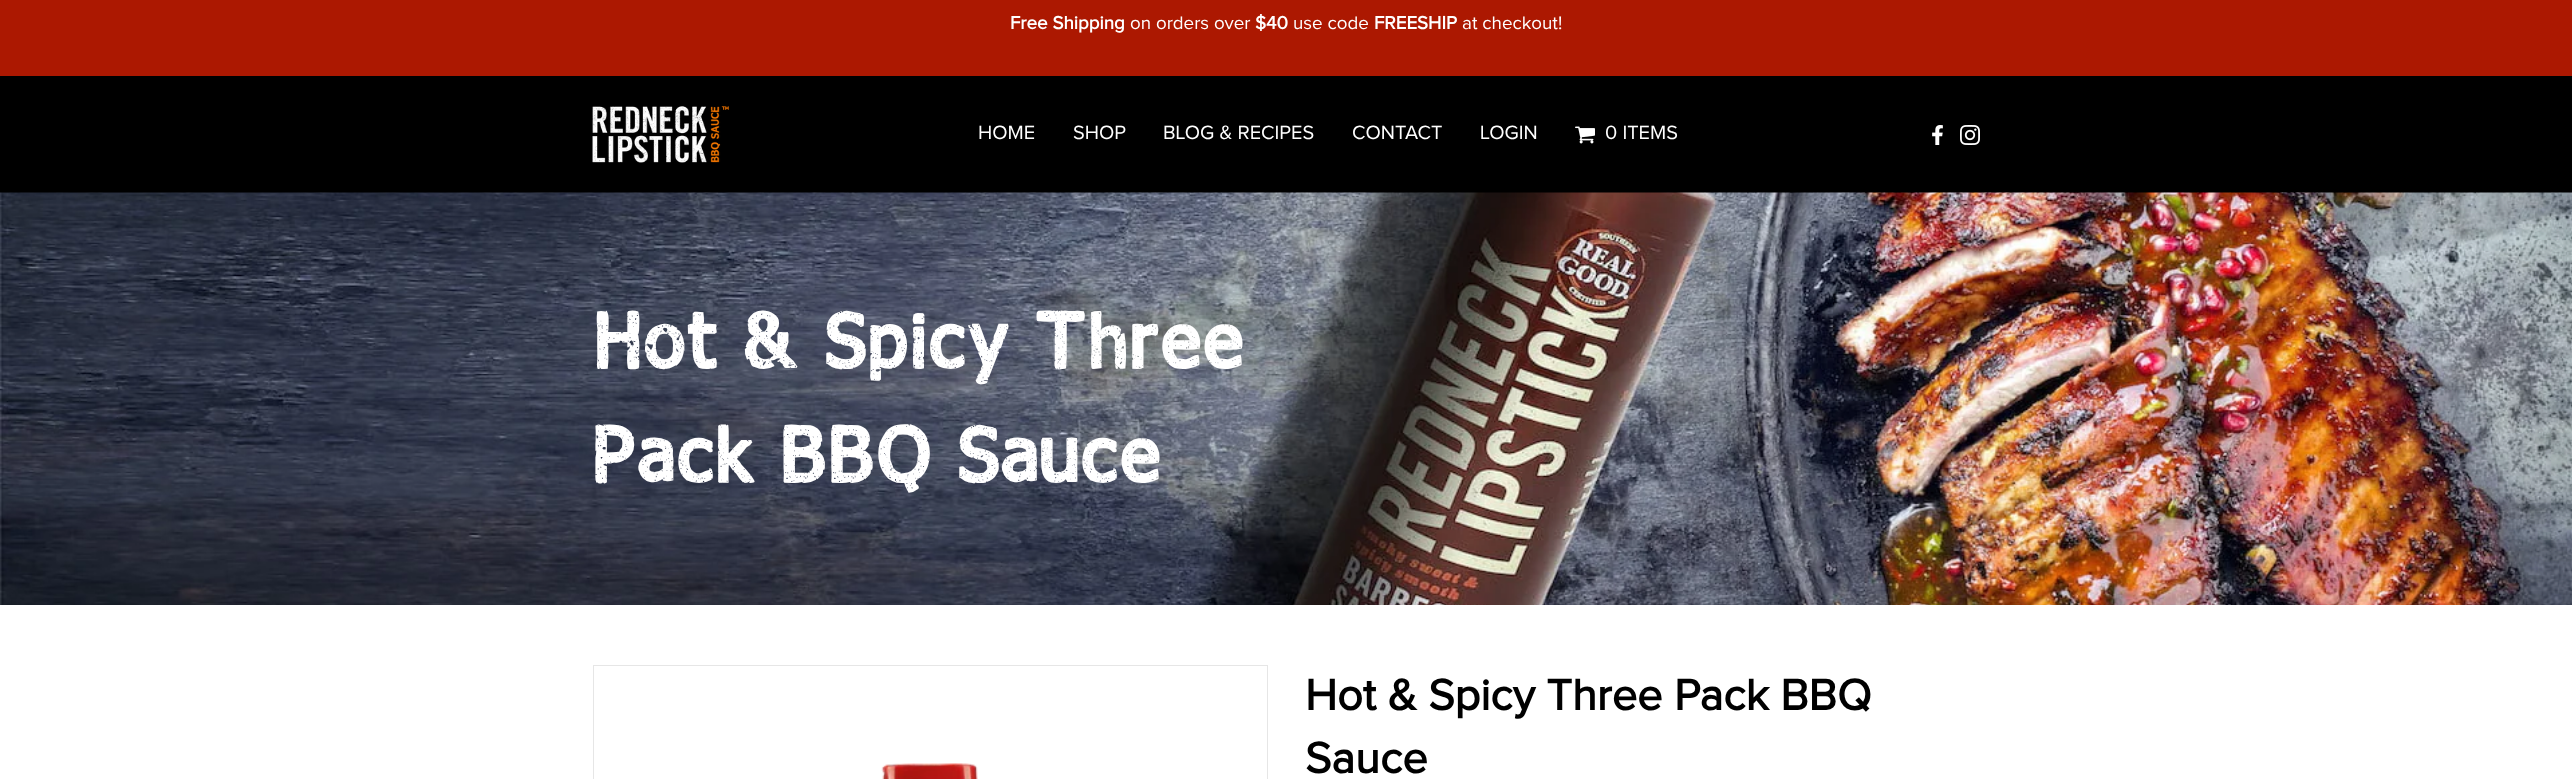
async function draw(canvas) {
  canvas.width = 2572
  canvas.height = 779
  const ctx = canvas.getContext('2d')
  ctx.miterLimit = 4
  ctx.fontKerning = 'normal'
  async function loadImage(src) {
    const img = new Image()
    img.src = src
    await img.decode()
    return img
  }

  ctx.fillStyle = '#fff'
  ctx.fillRect(0, 0, 2572, 779)
  ctx.fillStyle = '#ac1801'
  ctx.fillRect(0, 0, 2572, 76)
  ctx.font = 'bold 18.75px Proxima Nova'
  ctx.fillStyle = '#fff'
  ctx.fillText('Free Shipping', 1010, 29)
  ctx.font = '18.75px Proxima Nova'
  ctx.fillText('on orders over', 1130, 29)
  ctx.font = 'bold 18.75px Proxima Nova'
  ctx.fillText('$40', 1255, 29)
  ctx.font = '18.75px Proxima Nova'
  ctx.fillText('use code', 1293, 29)
  ctx.font = 'bold 18.75px Proxima Nova'
  ctx.fillText('FREESHIP', 1374, 29)
  ctx.font = '18.75px Proxima Nova'
  ctx.fillText('at checkout!', 1462, 29)
  ctx.fillStyle = '#000'
  ctx.fillRect(0, 76, 2572, 117)
  ctx.drawImage(await loadImage('image0.png'), 592, 106, 137, 57)
  ctx.font = '20px Proxima Nova'
  ctx.fillStyle = '#fff'
  ctx.fillText('HOME', 978, 139)
  ctx.fillText('SHOP', 1073, 139)
  ctx.fillText('BLOG & RECIPES', 1163, 139)
  ctx.fillText('CONTACT', 1352, 139)
  ctx.fillText('LOGIN', 1480, 139)
  ctx.drawImage(await loadImage('image1.png'), 1575, 126, 20, 18)
  ctx.fillText('0 ITEMS', 1605, 139)
  ctx.drawImage(await loadImage('image2.png'), 1932, 125, 11, 20)
  ctx.drawImage(await loadImage('image3.png'), 1960, 125, 20, 20)
  ctx.drawImage(await loadImage('image4.png'), 0, 192, 2572, 413)
  ctx.font = '81.25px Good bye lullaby'
  ctx.fillText('Hot & Spicy Three', 593, 369)
  ctx.fillText('Pack BBQ Sauce', 593, 483)
  ctx.strokeStyle = '#e6e6e6'
  ctx.strokeRect(593.5, 665.5, 674, 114)
  ctx.drawImage(await loadImage('image5.png'), 881, 763, 97, 16)
  ctx.font = 'bold 45px Proxima Nova'
  ctx.fillStyle = '#000'
  ctx.fillText('Hot & Spicy Three Pack BBQ', 1305, 710)
  ctx.fillText('Sauce', 1305, 773)
}

draw(document.querySelector('canvas'))
